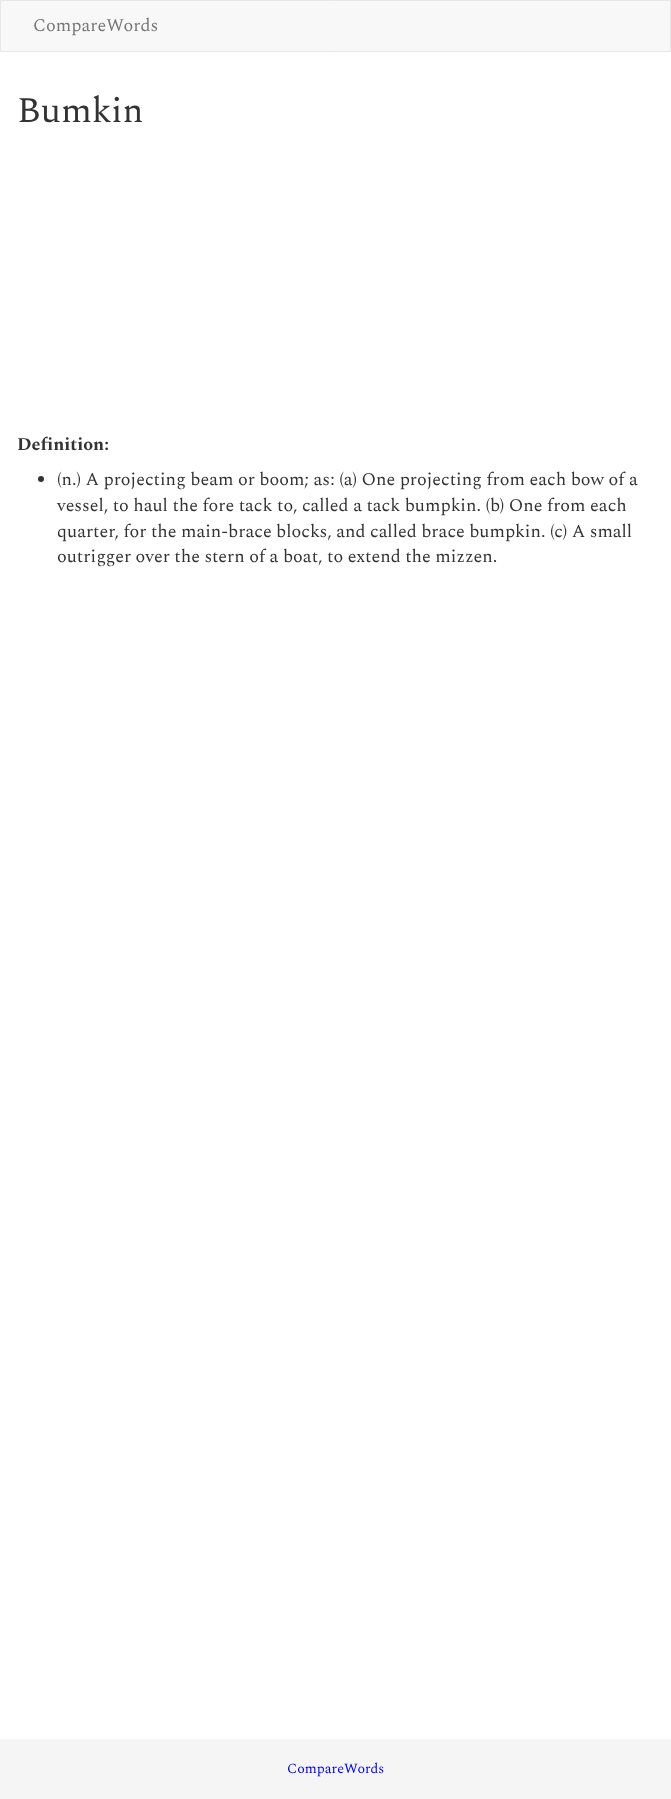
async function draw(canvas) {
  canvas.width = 671
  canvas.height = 1799
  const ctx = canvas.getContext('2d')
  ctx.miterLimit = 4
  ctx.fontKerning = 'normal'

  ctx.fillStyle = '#fff'
  ctx.fillRect(0, 0, 671, 1799)
  ctx.fillStyle = '#f8f8f8'
  ctx.beginPath()
  ctx.rect(0.5, 0.5, 670, 51)
  ctx.fill()
  ctx.strokeStyle = '#e7e7e7'
  ctx.stroke()
  ctx.font = '18px Spectral'
  ctx.fillStyle = '#777'
  ctx.fillText('CompareWords', 33, 31)
  ctx.font = '36px Spectral'
  ctx.fillStyle = '#333'
  ctx.fillText('Bumkin', 17, 122)
  ctx.font = 'bold 18px Spectral'
  ctx.fillText('Definition:', 17, 450)
  ctx.beginPath()
  ctx.arc(41, 479, 3, 0, 2 * Math.PI)
  ctx.fill()
  ctx.font = '18px Spectral'
  ctx.fillText('(n.) A projecting beam or boom; as: (a) One projecting from each bow of a', 57, 485)
  ctx.fillText('vessel, to haul the fore tack to, called a tack bumpkin. (b) One from each', 57, 511)
  ctx.fillText('quarter, for the main-brace blocks, and called brace bumpkin. (c) A small', 57, 537)
  ctx.fillText('outrigger over the stern of a boat, to extend the mizzen.', 57, 562)
  ctx.fillStyle = '#f5f5f5'
  ctx.fillRect(0, 1739, 671, 60)
  ctx.font = '14px Spectral'
  ctx.fillStyle = '#00f'
  ctx.fillText('CompareWords', 287, 1773)
}

draw(document.querySelector('canvas'))
